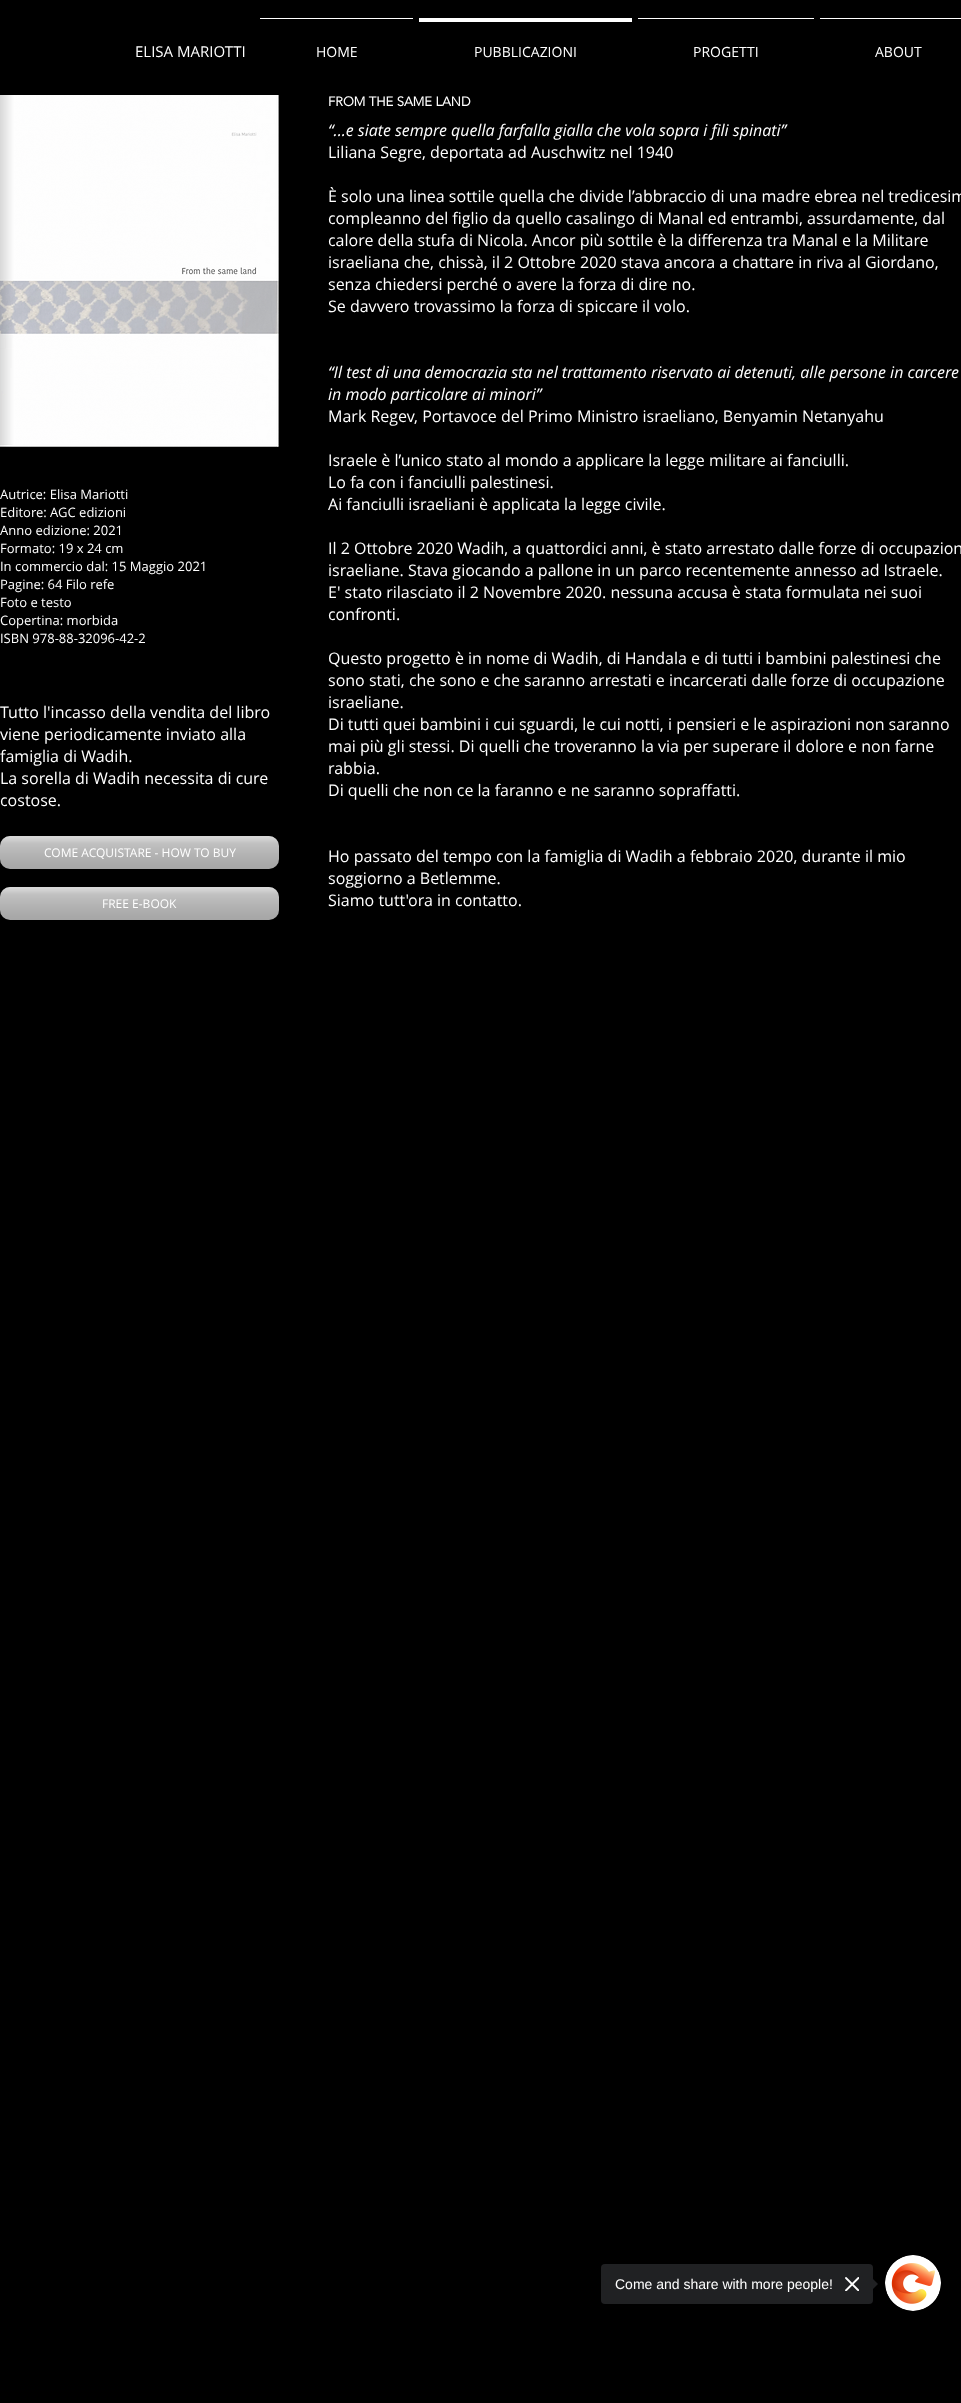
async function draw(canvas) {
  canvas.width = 961
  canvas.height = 2403
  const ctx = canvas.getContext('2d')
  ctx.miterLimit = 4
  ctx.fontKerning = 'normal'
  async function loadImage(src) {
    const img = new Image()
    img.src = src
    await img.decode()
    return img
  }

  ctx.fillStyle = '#000'
  ctx.fillRect(0, 0, 961, 2403)
  ctx.font = '15px Open Sans'
  ctx.fillStyle = '#fff'
  ctx.fillText('ELISA MARIOTTI', 135, 57)
  ctx.fillRect(260, 18, 153, 1)
  ctx.font = '14px Open Sans'
  ctx.fillText('HOME', 316, 57)
  ctx.fillRect(419, 18, 213, 4)
  ctx.fillText('PUBBLICAZIONI', 474, 57)
  ctx.fillRect(638, 18, 176, 1)
  ctx.fillText('PROGETTI', 693, 57)
  ctx.fillRect(820, 18, 141, 1)
  ctx.fillText('ABOUT', 875, 57)
  ctx.drawImage(await loadImage('image0.png'), 0, 95, 279, 352)
  ctx.font = 'bold 13px "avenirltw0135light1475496"'
  ctx.fillText('FROM THE SAME LAND', 328, 106)
  ctx.font = '13px Open Sans'
  ctx.fillText('Autrice: Elisa Mariotti', 0, 499)
  ctx.fillText('Editore: AGC edizioni', 0, 517)
  ctx.fillText('Anno edizione: 2021', 0, 535)
  ctx.fillText('Formato: 19 x 24 cm', 0, 553)
  ctx.fillText('In commercio dal: 15 Maggio 2021', 0, 571)
  ctx.fillText('Pagine: 64 Filo refe', 0, 589)
  ctx.fillText('Foto e testo', 0, 607)
  ctx.fillText('Copertina: morbida', 0, 625)
  ctx.fillText('ISBN 978-88-32096-42-2', 0, 643)
  ctx.font = '16px Open Sans'
  ctx.fillText('Tutto l\'incasso della vendita del libro', 0, 718)
  ctx.fillText('viene periodicamente inviato alla', 0, 740)
  ctx.fillText('famiglia di Wadih.', 0, 762)
  ctx.fillText('La sorella di Wadih necessita di cure', 0, 784)
  ctx.fillText('costose.', 0, 806)
  ctx.font = 'italic 16px Open Sans'
  ctx.fillText('“...e siate sempre quella farfalla gialla che vola sopra i fili spinati”', 328, 136)
  ctx.font = '16px Open Sans'
  ctx.fillText('Liliana Segre, deportata ad Auschwitz nel 1940', 328, 158)
  ctx.fillText('È solo una linea sottile quella che divide l’abbraccio di una madre ebrea nel tredicesim', 328, 202)
  ctx.fillText('compleanno del figlio da quello casalingo di Manal ed entrambi, assurdamente, dal', 328, 224)
  ctx.fillText('calore della stufa di Nicola. Ancor più sottile è la differenza tra Manal e la Militare', 328, 246)
  ctx.fillText('israeliana che, chissà, il 2 Ottobre 2020 stava ancora a chattare in riva al Giordano,', 328, 268)
  ctx.fillText('senza chiedersi perché o avere la forza di dire no.', 328, 290)
  ctx.fillText('Se davvero trovassimo la forza di spiccare il volo.', 328, 312)
  ctx.font = 'italic 16px Open Sans'
  ctx.fillText('“Il test di una democrazia sta nel trattamento riservato ai detenuti, alle persone in carcere', 328, 378)
  ctx.fillText('in modo particolare ai minori”', 328, 400)
  ctx.font = '16px Open Sans'
  ctx.fillText('Mark Regev, Portavoce del Primo Ministro israeliano, Benyamin Netanyahu', 328, 422)
  ctx.fillText('Israele è l’unico stato al mondo a applicare la legge militare ai fanciulli.', 328, 466)
  ctx.fillText('Lo fa con i fanciulli palestinesi.', 328, 488)
  ctx.fillText('Ai fanciulli israeliani è applicata la legge civile.', 328, 510)
  ctx.fillText('Il 2 Ottobre 2020 Wadih, a quattordici anni, è stato arrestato dalle forze di occupazion', 328, 554)
  ctx.fillText('israeliane. Stava giocando a pallone in un parco recentemente annesso ad Istraele.', 328, 576)
  ctx.fillText('E\' stato rilasciato il 2 Novembre 2020. nessuna accusa è stata formulata nei suoi', 328, 598)
  ctx.fillText('confronti.', 328, 620)
  ctx.fillText('Questo progetto è in nome di Wadih, di Handala e di tutti i bambini palestinesi che', 328, 664)
  ctx.fillText('sono stati, che sono e che saranno arrestati e incarcerati dalle forze di occupazione', 328, 686)
  ctx.fillText('israeliane.', 328, 708)
  ctx.fillText('Di tutti quei bambini i cui sguardi, le cui notti, i pensieri e le aspirazioni non saranno', 328, 730)
  ctx.fillText('mai più gli stessi. Di quelli che troveranno la via per superare il dolore e non farne', 328, 752)
  ctx.fillText('rabbia.', 328, 774)
  ctx.fillText('Di quelli che non ce la faranno e ne saranno sopraffatti.', 328, 796)
  ctx.fillText('Ho passato del tempo con la famiglia di Wadih a febbraio 2020, durante il mio', 328, 862)
  ctx.fillText('soggiorno a Betlemme.', 328, 884)
  ctx.fillText('Siamo tutt\'ora in contatto.', 328, 906)
  ctx.fillStyle = '#9e9e9e'
  ctx.beginPath()
  ctx.roundRect(0, 836, 279, 33, 10)
  ctx.fill()
  ctx.drawImage(await loadImage('image1.png'), 0, 836, 279, 33)
  ctx.font = '12px Open Sans'
  ctx.fillStyle = '#fff'
  ctx.fillText('COME ACQUISTARE - HOW TO BUY', 44, 857)
  ctx.fillStyle = '#9e9e9e'
  ctx.beginPath()
  ctx.roundRect(0, 887, 279, 33, 10)
  ctx.fill()
  ctx.drawImage(await loadImage('image1.png'), 0, 887, 279, 33)
  ctx.fillStyle = '#fff'
  ctx.fillText('FREE E-BOOK', 102, 908)
  ctx.fillStyle = '#202123'
  ctx.beginPath()
  ctx.roundRect(601, 2264, 272, 40, 4)
  ctx.fill()
  ctx.font = '14px Liberation Sans'
  ctx.fillStyle = '#fff'
  ctx.fillText('Come and share with more people!', 615, 2289)
  ctx.drawImage(await loadImage('image2.png'), 845, 2277, 14, 14)
  ctx.fillStyle = '#202123'
  ctx.beginPath()
  ctx.moveTo(871, 2291)
  ctx.lineTo(871, 2277)
  ctx.lineTo(878, 2284)
  ctx.closePath()
  ctx.fill()
  ctx.drawImage(await loadImage('image3.png'), 885, 2255, 56, 56)
}

draw(document.querySelector('canvas'))
